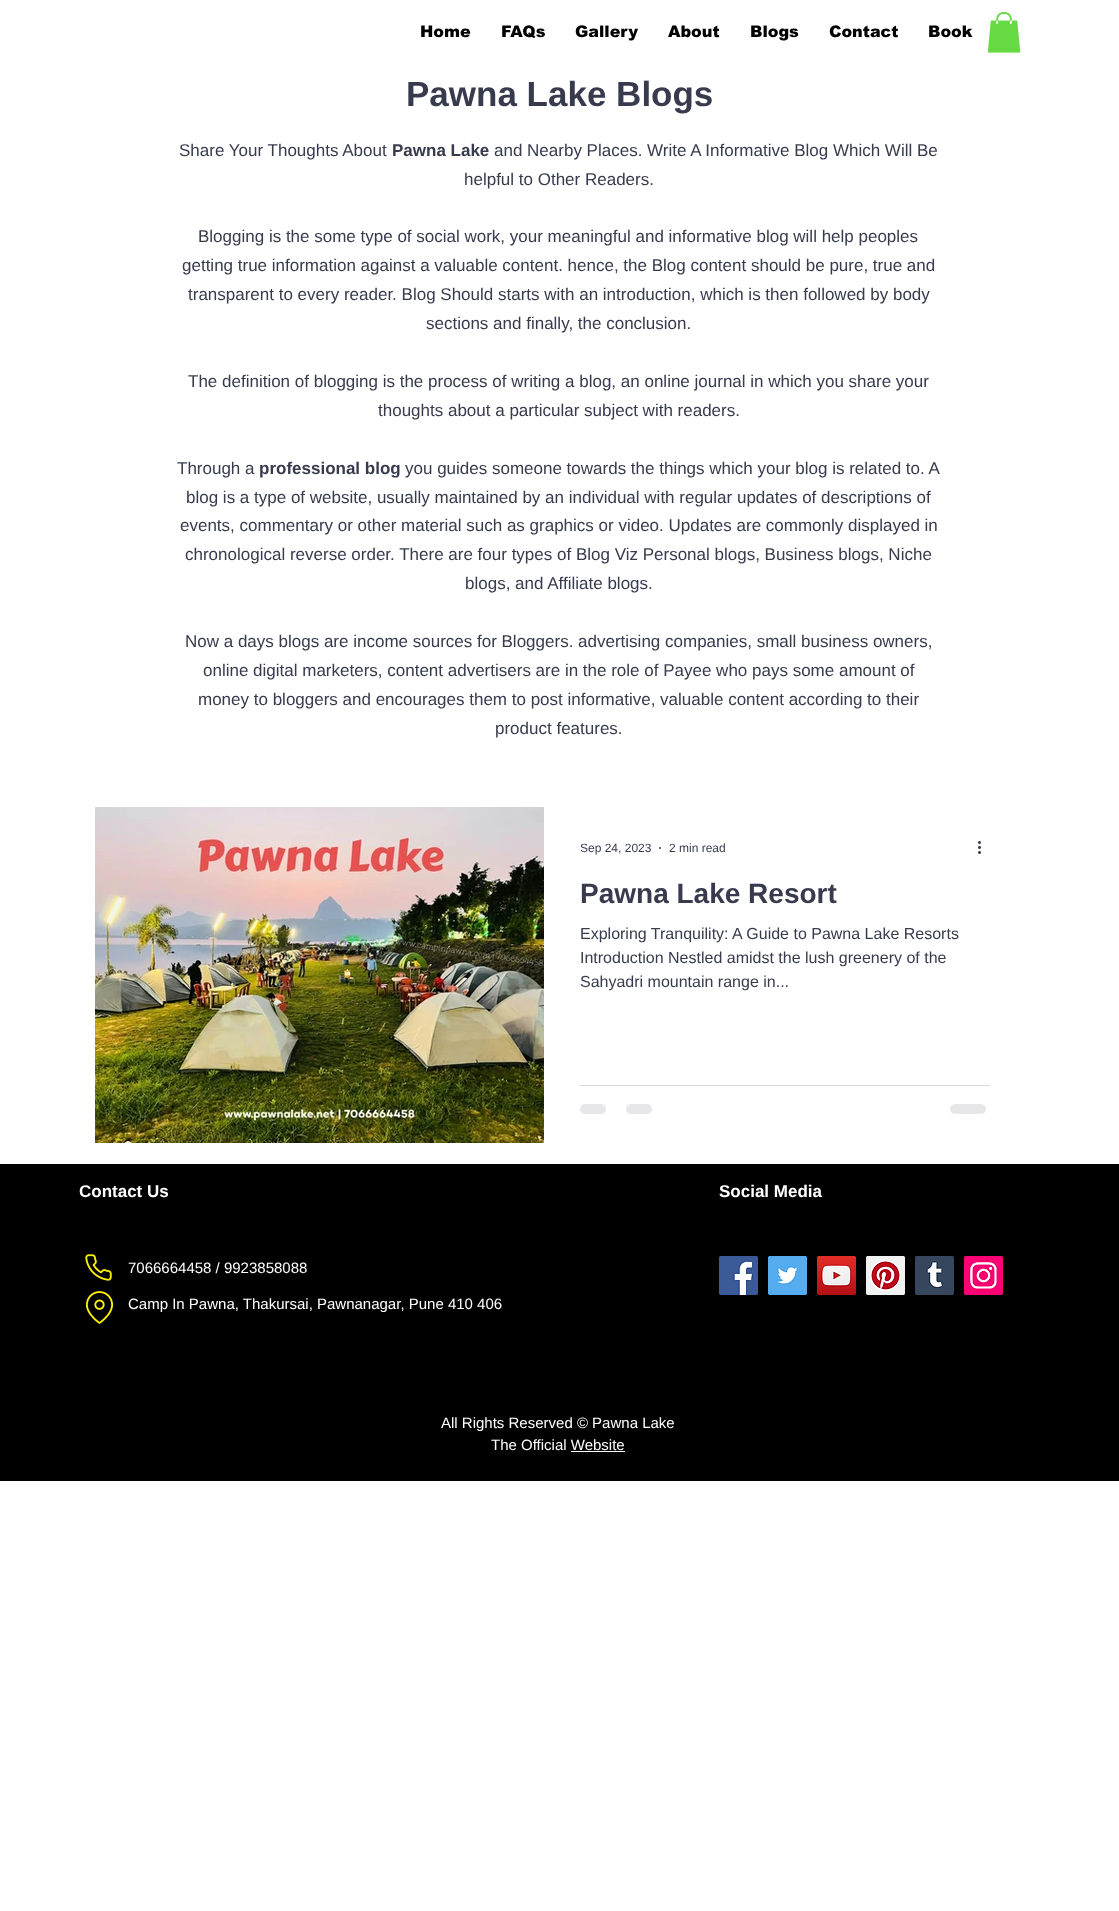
async function draw(canvas) {
  canvas.width = 1119
  canvas.height = 1911
  const ctx = canvas.getContext('2d')
  ctx.miterLimit = 4
  ctx.fontKerning = 'normal'
  async function loadImage(src) {
    const img = new Image()
    img.src = src
    await img.decode()
    return img
  }

  ctx.fillStyle = '#fff'
  ctx.fillRect(0, 0, 1119, 1911)
  ctx.font = '900 16px arial'
  ctx.fillStyle = '#000'
  ctx.fillText('Home', 420, 37)
  ctx.fillText('FAQs', 501, 37)
  ctx.fillText('Gallery', 575, 37)
  ctx.fillText('About', 668, 37)
  ctx.fillText('Blogs', 750, 37)
  ctx.fillText('Contact', 829, 37)
  ctx.fillText('Book', 928, 37)
  ctx.drawImage(await loadImage('image0.png'), 987, 12, 34, 41)
  ctx.font = 'bold 35px Liberation Sans'
  ctx.fillStyle = '#373b4d'
  ctx.fillText('Pawna Lake Blogs', 406, 106)
  ctx.font = '17px Liberation Sans'
  ctx.fillText('Share Your Thoughts About', 179, 156)
  ctx.font = 'bold 17px Liberation Sans'
  ctx.fillText('Pawna Lake', 392, 156)
  ctx.font = '17px Liberation Sans'
  ctx.fillText('and Nearby Places. Write A Informative Blog Which Will Be', 494, 156)
  ctx.fillText('helpful to Other Readers.', 464, 185)
  ctx.fillText('Blogging is the some type of social work, your meaningful and informative blog will help peoples', 198, 242)
  ctx.fillText('getting true information against a valuable content. hence, the Blog content should be pure, true and', 182, 271)
  ctx.fillText('transparent to every reader. Blog Should starts with an introduction, which is then followed by body', 188, 300)
  ctx.fillText('sections and finally, the conclusion.', 426, 329)
  ctx.fillText('The definition of blogging is the process of writing a blog, an online journal in which you share your', 188, 387)
  ctx.fillText('thoughts about a particular subject with readers.', 378, 416)
  ctx.fillText('Through a', 177, 474)
  ctx.font = 'bold 17px Liberation Sans'
  ctx.fillText('professional blog', 259, 474)
  ctx.font = '17px Liberation Sans'
  ctx.fillText('you guides someone towards the things which your blog is related to. A', 405, 474)
  ctx.fillText('blog is a type of website, usually maintained by an individual with regular updates of descriptions of', 186, 503)
  ctx.fillText('events, commentary or other material such as graphics or video. Updates are commonly displayed in', 180, 531)
  ctx.fillText('chronological reverse order. There are four types of Blog Viz Personal blogs, Business blogs, Niche', 185, 560)
  ctx.fillText('blogs, and Affiliate blogs.', 465, 589)
  ctx.fillText('Now a days blogs are income sources for Bloggers. advertising companies, small business owners,', 185, 647)
  ctx.fillText('online digital marketers, content advertisers are in the role of Payee who pays some amount of', 203, 676)
  ctx.fillText('money to bloggers and encourages them to post informative, valuable content according to their', 198, 705)
  ctx.fillText('product features.', 495, 734)
  ctx.drawImage(await loadImage('image1.png'), 95, 807, 449, 336)
  ctx.font = '12px Liberation Sans'
  ctx.fillText('Sep 24, 2023', 580, 852)
  ctx.beginPath()
  ctx.arc(660, 848, 1, 0, 2 * Math.PI)
  ctx.fill()
  ctx.fillText('2 min read', 669, 852)
  ctx.drawImage(await loadImage('image2.png'), 978, 841, 3, 13)
  ctx.font = 'bold 28px Liberation Sans'
  ctx.fillText('Pawna Lake Resort', 580, 903)
  ctx.font = '16px Liberation Sans'
  ctx.fillText('Exploring Tranquility: A Guide to Pawna Lake Resorts', 580, 939)
  ctx.fillText('Introduction Nestled amidst the lush greenery of the', 580, 963)
  ctx.fillText('Sahyadri mountain range in...', 580, 987)
  ctx.fillStyle = '#d7d8db'
  ctx.fillRect(580, 1085, 410, 1)
  ctx.fillStyle = '#e7e7ea'
  ctx.beginPath()
  ctx.roundRect(580, 1104, 26, 10, 5)
  ctx.fill()
  ctx.beginPath()
  ctx.roundRect(626, 1104, 26, 10, 5)
  ctx.fill()
  ctx.beginPath()
  ctx.roundRect(950, 1104, 36, 10, 5)
  ctx.fill()
  ctx.fillStyle = '#000'
  ctx.fillRect(0, 1164, 1119, 317)
  ctx.font = 'bold 17px Liberation Sans'
  ctx.fillStyle = '#fff'
  ctx.fillText('Contact Us', 79, 1197)
  ctx.fillText('Social Media', 719, 1197)
  ctx.drawImage(await loadImage('image3.png'), 85, 1254, 27, 27)
  ctx.font = '15px Liberation Sans'
  ctx.fillText('7066664458 / 9923858088', 128, 1273)
  ctx.fillText('Camp In Pawna, Thakursai, Pawnanagar, Pune 410 406', 128, 1309)
  ctx.drawImage(await loadImage('image4.png'), 719, 1256, 39, 39)
  ctx.drawImage(await loadImage('image5.png'), 768, 1256, 39, 39)
  ctx.drawImage(await loadImage('image6.png'), 817, 1256, 39, 39)
  ctx.drawImage(await loadImage('image7.png'), 866, 1256, 39, 39)
  ctx.drawImage(await loadImage('image8.png'), 915, 1256, 39, 39)
  ctx.drawImage(await loadImage('image9.png'), 964, 1256, 39, 39)
  ctx.drawImage(await loadImage('image10.png'), 86, 1291, 27, 33)
  ctx.fillText('All Rights Reserved © Pawna Lake', 441, 1428)
  ctx.fillText('The Official Website', 491, 1450)
  ctx.fillRect(571, 1451, 54, 1)
}

draw(document.querySelector('canvas'))
